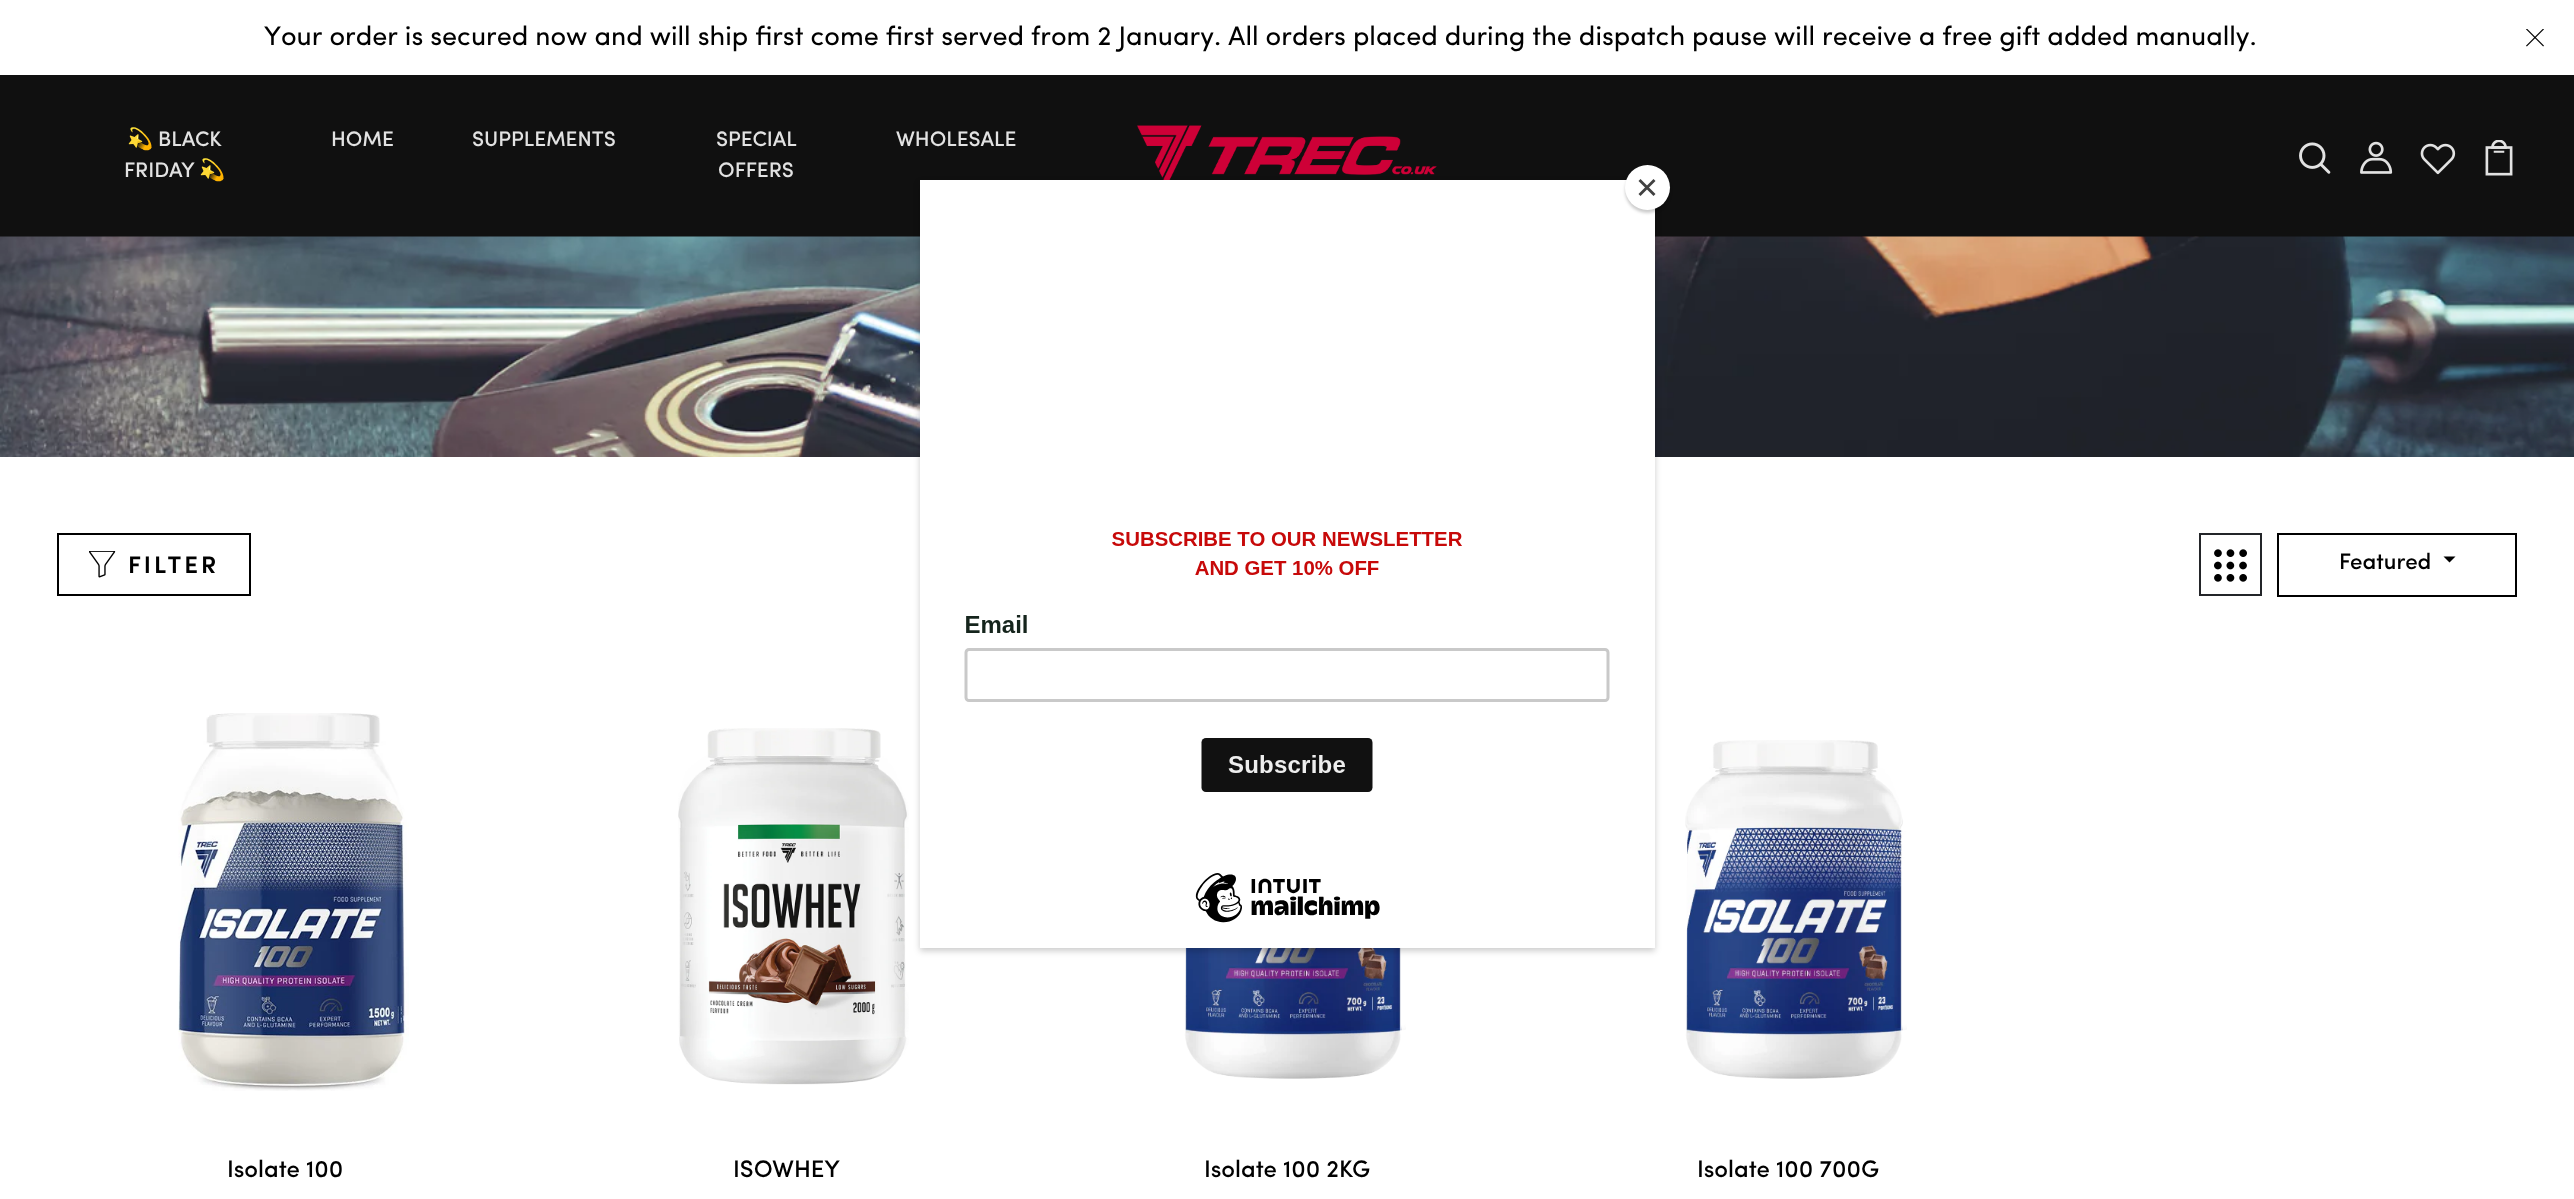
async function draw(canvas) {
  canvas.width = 2574
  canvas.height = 1199
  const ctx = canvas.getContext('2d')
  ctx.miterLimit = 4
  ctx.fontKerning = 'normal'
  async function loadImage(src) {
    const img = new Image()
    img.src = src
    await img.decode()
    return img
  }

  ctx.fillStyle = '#fff'
  ctx.fillRect(0, 0, 2574, 1199)
  ctx.font = '27px Sofia'
  ctx.fillStyle = '#000'
  ctx.fillText('Your order is secured now and will ship first come first served from 2 January. All orders placed during the dispatch pause will receive a free gift added manually.', 264, 45)
  ctx.drawImage(await loadImage('image0.png'), 2526, 29, 18, 18)
  ctx.fillStyle = '#101010'
  ctx.fillRect(0, 75, 2574, 162)
  ctx.font = '21px Noto Color Emoji'
  ctx.fillStyle = '#e2e2e2'
  ctx.fillText('💫', 127, 146)
  ctx.font = '500 21px Sofia'
  ctx.fillText('BLACK', 158, 146)
  ctx.fillText('FRIDAY', 124, 177)
  ctx.font = '21px Noto Color Emoji'
  ctx.fillText('💫', 199, 177)
  ctx.font = '500 21px Sofia'
  ctx.fillText('HOME', 331, 146)
  ctx.fillText('SUPPLEMENTS', 472, 146)
  ctx.fillText('SPECIAL', 716, 146)
  ctx.fillText('OFFERS', 718, 177)
  ctx.fillText('WHOLESALE', 896, 146)
  ctx.drawImage(await loadImage('image1.png'), 1137, 125, 300, 55)
  ctx.drawImage(await loadImage('image2.png'), 2299, 142, 32, 32)
  ctx.drawImage(await loadImage('image3.png'), 2360, 141, 33, 33)
  ctx.drawImage(await loadImage('image4.png'), 2420, 143, 36, 32)
  ctx.drawImage(await loadImage('image5.png'), 2485, 140, 28, 36)
  ctx.drawImage(await loadImage('image6.png'), 0, 236, 2574, 221)
  ctx.strokeStyle = '#000'
  ctx.lineWidth = 2
  ctx.strokeRect(58, 534, 192, 61)
  ctx.drawImage(await loadImage('image7.png'), 89, 551, 27, 27)
  ctx.letterSpacing = '3px'
  ctx.font = '600 24px Sofia'
  ctx.fillStyle = '#000'
  ctx.fillText('FILTER', 128, 573)
  ctx.strokeStyle = '#232529'
  ctx.strokeRect(2200, 534, 61, 61)
  ctx.drawImage(await loadImage('image8.png'), 2214, 549, 33, 33)
  ctx.strokeStyle = '#000'
  ctx.strokeRect(2278, 534, 238, 62)
  ctx.letterSpacing = '0px'
  ctx.font = '500 22.5px Sofia'
  ctx.fillText('Featured', 2339, 569)
  ctx.beginPath()
  ctx.moveTo(2443.5, 556.5)
  ctx.lineTo(2455.5, 556.5)
  ctx.lineTo(2449.5, 562.5)
  ctx.closePath()
  ctx.fill()
  ctx.drawImage(await loadImage('image9.png'), 178, 713, 231, 378)
  ctx.font = '500 24px Sofia'
  ctx.fillText('Isolate 100', 227, 1177)
  ctx.drawImage(await loadImage('image10.png'), 678, 728, 231, 357)
  ctx.fillText('ISOWHEY', 733, 1177)
  ctx.drawImage(await loadImage('image11.png'), 1184, 948, 222, 131)
  ctx.fillText('Isolate 100 2KG', 1204, 1177)
  ctx.drawImage(await loadImage('image12.png'), 1685, 740, 222, 339)
  ctx.fillText('Isolate 100 700G', 1697, 1177)
  ctx.fillStyle = '#00000033'
  ctx.filter = 'blur(3px)'
  ctx.beginPath()
  ctx.rect(920, 183, 735, 768)
  ctx.fill()
  ctx.filter = 'none'
  ctx.drawImage(await loadImage('image13.png'), 920, 180, 735, 768)
  ctx.filter = 'blur(1.5px)'
  ctx.beginPath()
  ctx.roundRect(1625, 168, 45, 45, 22.5)
  ctx.fill()
  ctx.filter = 'none'
  ctx.fillStyle = '#fff'
  ctx.beginPath()
  ctx.arc(1647.5, 187.5, 22.5, 0, 2 * Math.PI)
  ctx.fill()
  ctx.fillStyle = '#414141'
  ctx.beginPath()
  ctx.moveTo(1653.5, 179)
  ctx.lineTo(1655.5, 181)
  ctx.lineTo(1640.5, 196)
  ctx.lineTo(1638.5, 194)
  ctx.closePath()
  ctx.fill()
  ctx.beginPath()
  ctx.moveTo(1638.5, 181)
  ctx.lineTo(1640.5, 179)
  ctx.lineTo(1655.5, 194)
  ctx.lineTo(1653.5, 196)
  ctx.closePath()
  ctx.fill()
}

draw(document.querySelector('canvas'))
